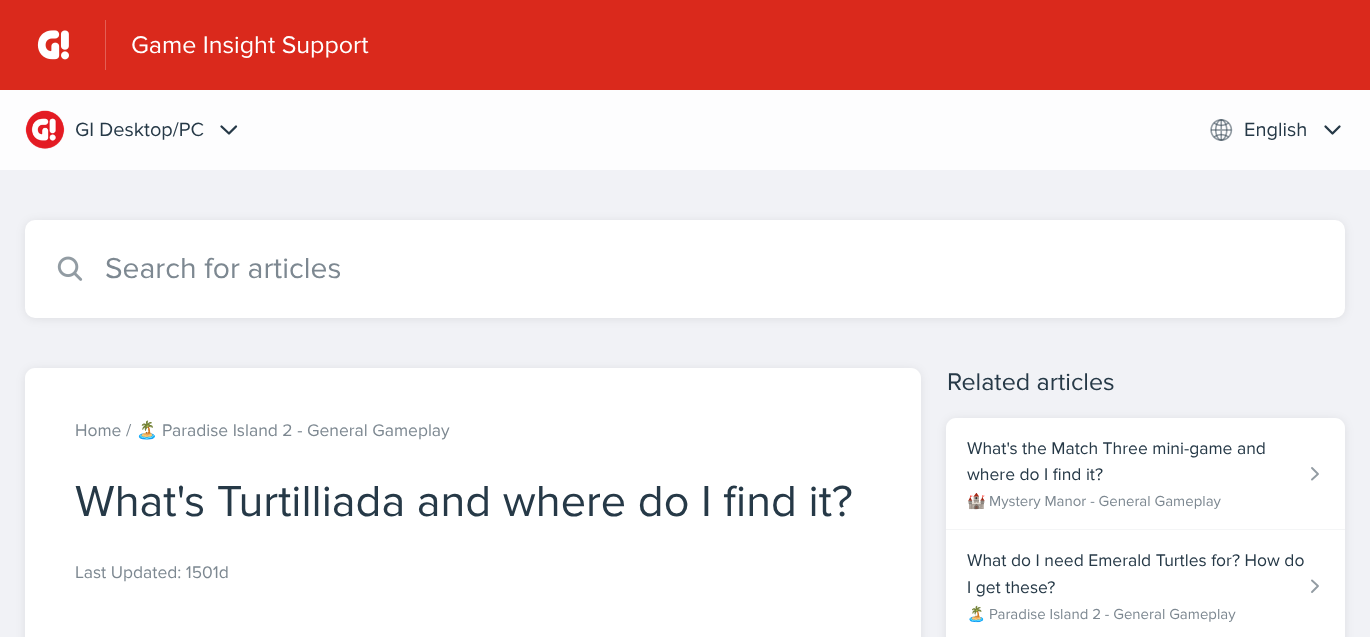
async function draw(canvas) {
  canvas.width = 1370
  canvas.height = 637
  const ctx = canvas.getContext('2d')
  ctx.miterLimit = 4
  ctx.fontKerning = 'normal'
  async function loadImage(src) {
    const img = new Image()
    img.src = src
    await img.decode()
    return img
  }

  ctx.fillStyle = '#fdfdfe'
  ctx.fillRect(0, 0, 1370, 637)
  ctx.fillStyle = '#da291c'
  ctx.fillRect(0, 0, 1370, 90)
  ctx.fillStyle = '#e35f55'
  ctx.fillRect(105, 20, 1, 50)
  ctx.drawImage(await loadImage('image0.png'), 37, 30, 32, 30)
  ctx.font = '25px Proxima Nova'
  ctx.fillStyle = '#fff'
  ctx.fillText('Game Insight Support', 131, 53)
  ctx.drawImage(await loadImage('image1.png'), 25, 110, 40, 39)
  ctx.font = '20px Proxima Nova'
  ctx.fillStyle = '#263947'
  ctx.fillText('GI Desktop/PC', 75, 136)
  ctx.beginPath()
  ctx.moveTo(221.5, 126.5)
  ctx.lineTo(229, 133.5)
  ctx.lineTo(236, 126.5)
  ctx.strokeStyle = '#263947'
  ctx.lineWidth = 2.3
  ctx.lineCap = 'round'
  ctx.lineJoin = 'round'
  ctx.stroke()
  ctx.drawImage(await loadImage('image2.png'), 1210, 119, 23, 22)
  ctx.fillText('English', 1244, 136)
  ctx.beginPath()
  ctx.moveTo(1325.5, 126.5)
  ctx.lineTo(1332.5, 133.5)
  ctx.lineTo(1339.5, 126.5)
  ctx.stroke()
  ctx.fillStyle = '#f1f2f6'
  ctx.fillRect(0, 170, 1370, 467)
  ctx.fillStyle = '#00000014'
  ctx.filter = 'blur(5px)'
  ctx.beginPath()
  ctx.roundRect(25, 221, 1320, 98, 10)
  ctx.fill()
  ctx.filter = 'none'
  ctx.fillStyle = '#fff'
  ctx.beginPath()
  ctx.roundRect(25, 220, 1320, 98, 10)
  ctx.fill()
  ctx.drawImage(await loadImage('image3.png'), 57, 256, 26, 25)
  ctx.font = '30px Proxima Nova'
  ctx.fillStyle = '#7d8891'
  ctx.fillText('Search for articles', 105, 278)
  ctx.fillStyle = '#00000014'
  ctx.filter = 'blur(5px)'
  ctx.beginPath()
  ctx.roundRect(25, 369, 896, 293, 10)
  ctx.fill()
  ctx.filter = 'none'
  ctx.fillStyle = '#fff'
  ctx.beginPath()
  ctx.moveTo(35, 368)
  ctx.lineTo(911, 368)
  ctx.bezierCurveTo(916.5, 368, 921, 372.5, 921, 378)
  ctx.lineTo(921, 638)
  ctx.lineTo(25, 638)
  ctx.lineTo(25, 378)
  ctx.bezierCurveTo(25, 372.5, 29.5, 368, 35, 368)
  ctx.closePath()
  ctx.fill()
  ctx.font = '17.5px Proxima Nova'
  ctx.fillStyle = '#7d8891'
  ctx.fillText('Home /', 75, 436)
  ctx.font = '17.5px Noto Color Emoji'
  ctx.fillText('🏝️', 136, 436)
  ctx.font = '17.5px Proxima Nova'
  ctx.fillText('Paradise Island 2 - General Gameplay', 162, 436)
  ctx.font = '45px Proxima Nova'
  ctx.fillStyle = '#263947'
  ctx.fillText('What\'s Turtilliada and where do I find it?', 75, 516)
  ctx.font = '17.5px Proxima Nova'
  ctx.fillStyle = '#7d8891'
  ctx.fillText('Last Updated: 1501d', 75, 578)
  ctx.font = '25px Proxima Nova'
  ctx.fillStyle = '#263947'
  ctx.fillText('Related articles', 947, 390)
  ctx.fillStyle = '#00000014'
  ctx.filter = 'blur(5px)'
  ctx.beginPath()
  ctx.roundRect(946, 419, 399, 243, 10)
  ctx.fill()
  ctx.filter = 'none'
  ctx.fillStyle = '#fff'
  ctx.beginPath()
  ctx.moveTo(956, 418)
  ctx.lineTo(1335, 418)
  ctx.bezierCurveTo(1340.5, 418, 1345, 422.5, 1345, 428)
  ctx.lineTo(1345, 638)
  ctx.lineTo(946, 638)
  ctx.lineTo(946, 428)
  ctx.bezierCurveTo(946, 422.5, 950.5, 418, 956, 418)
  ctx.closePath()
  ctx.fill()
  ctx.fillStyle = '#f4f5f6'
  ctx.fillRect(946, 529, 399, 1)
  ctx.font = '17.5px Proxima Nova'
  ctx.fillStyle = '#263947'
  ctx.fillText('What\'s the Match Three mini-game and', 967, 454)
  ctx.fillText('where do I find it?', 967, 480)
  ctx.font = '15px Noto Color Emoji'
  ctx.fillStyle = '#7d8891'
  ctx.fillText('🏰', 967, 506)
  ctx.font = '15px Proxima Nova'
  ctx.fillText('Mystery Manor - General Gameplay', 989, 506)
  ctx.beginPath()
  ctx.moveTo(1312, 468)
  ctx.lineTo(1318, 474)
  ctx.lineTo(1312, 479.5)
  ctx.strokeStyle = '#939ca3'
  ctx.lineWidth = 1.9
  ctx.stroke()
  ctx.font = '17.5px Proxima Nova'
  ctx.fillStyle = '#263947'
  ctx.fillText('What do I need Emerald Turtles for? How do', 967, 566)
  ctx.fillText('I get these?', 967, 593)
  ctx.font = '15px Noto Color Emoji'
  ctx.fillStyle = '#7d8891'
  ctx.fillText('🏝️', 967, 619)
  ctx.font = '15px Proxima Nova'
  ctx.fillText('Paradise Island 2 - General Gameplay', 989, 619)
  ctx.beginPath()
  ctx.moveTo(1312, 580.5)
  ctx.lineTo(1318, 586)
  ctx.lineTo(1312, 592)
  ctx.stroke()
}

draw(document.querySelector('canvas'))
